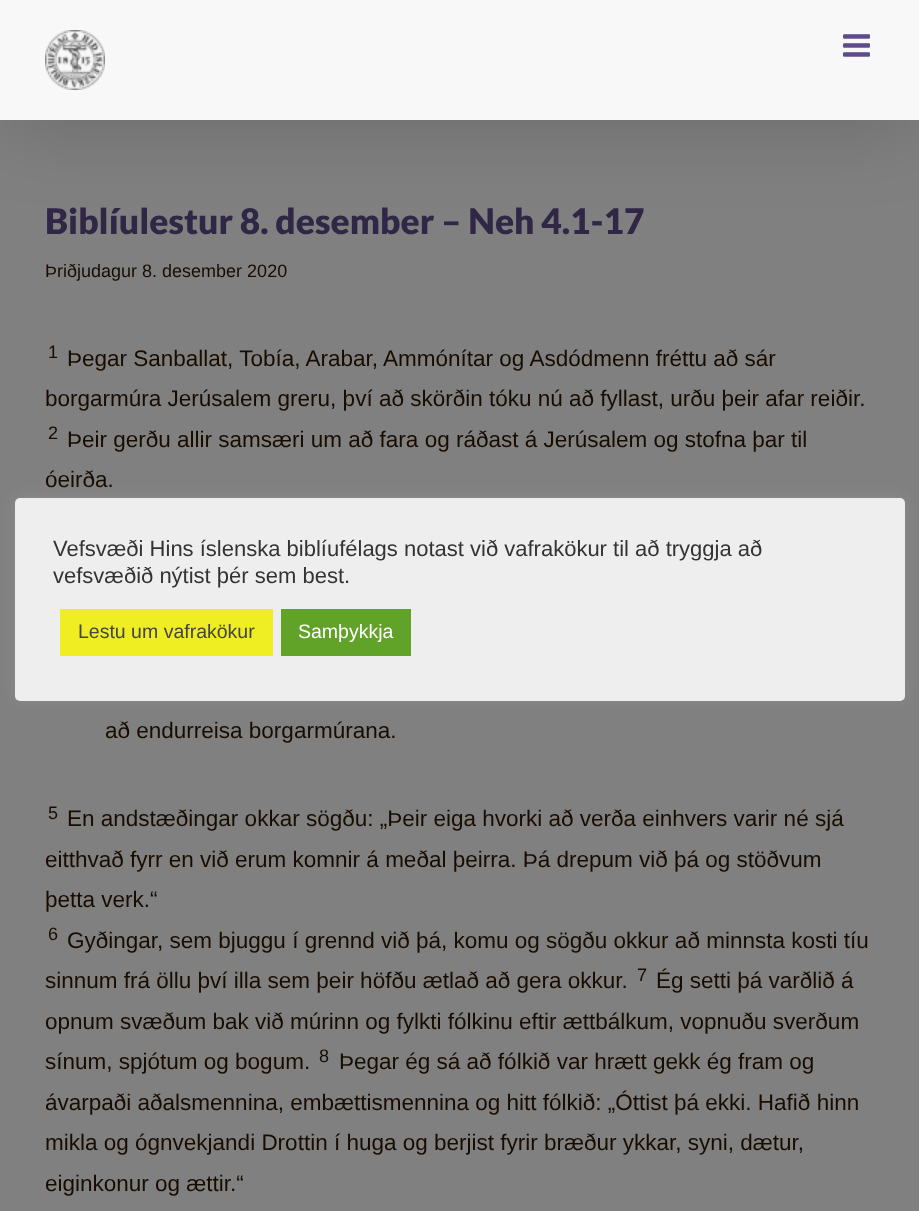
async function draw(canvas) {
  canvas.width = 919
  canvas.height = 1211
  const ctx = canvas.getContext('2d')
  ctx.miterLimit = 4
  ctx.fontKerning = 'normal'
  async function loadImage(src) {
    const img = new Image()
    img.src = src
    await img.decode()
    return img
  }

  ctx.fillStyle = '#808080'
  ctx.fillRect(0, 0, 919, 1211)
  ctx.fillStyle = '#00000024'
  ctx.filter = 'blur(37.5px)'
  ctx.beginPath()
  ctx.rect(3, 18, 914, 114)
  ctx.fill()
  ctx.filter = 'none'
  ctx.fillStyle = '#f8f8f8'
  ctx.fillRect(0, 0, 919, 120)
  ctx.drawImage(await loadImage('image0.png'), 45, 30, 60, 60)
  ctx.drawImage(await loadImage('image1.png'), 843, 34, 27, 23)
  ctx.font = '900 35.25px Lato'
  ctx.fillStyle = '#302646'
  ctx.fillText('Biblíulestur 8. desember – Neh 4.1-17', 45, 234)
  ctx.font = '18px Liberation Sans'
  ctx.fillStyle = '#180c00'
  ctx.fillText('Þriðjudagur 8. desember 2020', 45, 277)
  ctx.fillText('1', 48, 358)
  ctx.font = '22.5px Liberation Sans'
  ctx.fillText('Þegar Sanballat, Tobía, Arabar, Ammónítar og Asdódmenn fréttu að sár', 67, 366)
  ctx.fillText('borgarmúra Jerúsalem greru, því að skörðin tóku nú að fyllast, urðu þeir afar reiðir.', 45, 406)
  ctx.font = '18px Liberation Sans'
  ctx.fillText('2', 48, 439)
  ctx.font = '22.5px Liberation Sans'
  ctx.fillText('Þeir gerðu allir samsæri um að fara og ráðast á Jerúsalem og stofna þar til', 67, 447)
  ctx.fillText('óeirða.', 45, 487)
  ctx.fillText('að endurreisa borgarmúrana.', 105, 738)
  ctx.font = '18px Liberation Sans'
  ctx.fillText('5', 48, 819)
  ctx.font = '22.5px Liberation Sans'
  ctx.fillText('En andstæðingar okkar sögðu: „Þeir eiga hvorki að verða einhvers varir né sjá', 67, 826)
  ctx.fillText('eitthvað fyrr en við erum komnir á meðal þeirra. Þá drepum við þá og stöðvum', 45, 867)
  ctx.fillText('þetta verk.“', 45, 907)
  ctx.font = '18px Liberation Sans'
  ctx.fillText('6', 48, 940)
  ctx.font = '22.5px Liberation Sans'
  ctx.fillText('Gyðingar, sem bjuggu í grennd við þá, komu og sögðu okkur að minnsta kosti tíu', 67, 948)
  ctx.fillText('sinnum frá öllu því illa sem þeir höfðu ætlað að gera okkur.', 45, 988)
  ctx.font = '18px Liberation Sans'
  ctx.fillText('7', 637, 981)
  ctx.font = '22.5px Liberation Sans'
  ctx.fillText('Ég setti þá varðlið á', 656, 988)
  ctx.fillText('opnum svæðum bak við múrinn og fylkti fólkinu eftir ættbálkum, vopnuðu sverðum', 45, 1029)
  ctx.fillText('sínum, spjótum og bogum.', 45, 1069)
  ctx.font = '18px Liberation Sans'
  ctx.fillText('8', 319, 1062)
  ctx.font = '22.5px Liberation Sans'
  ctx.fillText('Þegar ég sá að fólkið var hrætt gekk ég fram og', 339, 1069)
  ctx.fillText('ávarpaði aðalsmennina, embættismennina og hitt fólkið: „Óttist þá ekki. Hafið hinn', 45, 1110)
  ctx.fillText('mikla og ógnvekjandi Drottin í huga og berjist fyrir bræður ykkar, syni, dætur,', 45, 1150)
  ctx.fillText('eiginkonur og ættir.“', 45, 1191)
  ctx.fillStyle = '#acabab4d'
  ctx.filter = 'blur(7.5px)'
  ctx.beginPath()
  ctx.roundRect(15, 497, 890, 202, 5)
  ctx.fill()
  ctx.filter = 'none'
  ctx.fillStyle = '#eee'
  ctx.beginPath()
  ctx.roundRect(15, 498, 890, 203, 5)
  ctx.fill()
  ctx.font = '22px Liberation Sans'
  ctx.fillStyle = '#333'
  ctx.fillText('Vefsvæði Hins íslenska biblíufélags notast við vafrakökur til að tryggja að', 53, 556)
  ctx.fillText('vefsvæðið nýtist þér sem best.', 53, 583)
  ctx.fillStyle = '#ee2'
  ctx.fillRect(60, 609, 213, 47)
  ctx.font = '19.5px Liberation Sans'
  ctx.fillStyle = '#444'
  ctx.fillText('Lestu um vafrakökur', 78, 638)
  ctx.fillStyle = '#61a229'
  ctx.fillRect(281, 609, 130, 47)
  ctx.fillStyle = '#fff'
  ctx.fillText('Samþykkja', 298, 638)
}

draw(document.querySelector('canvas'))
